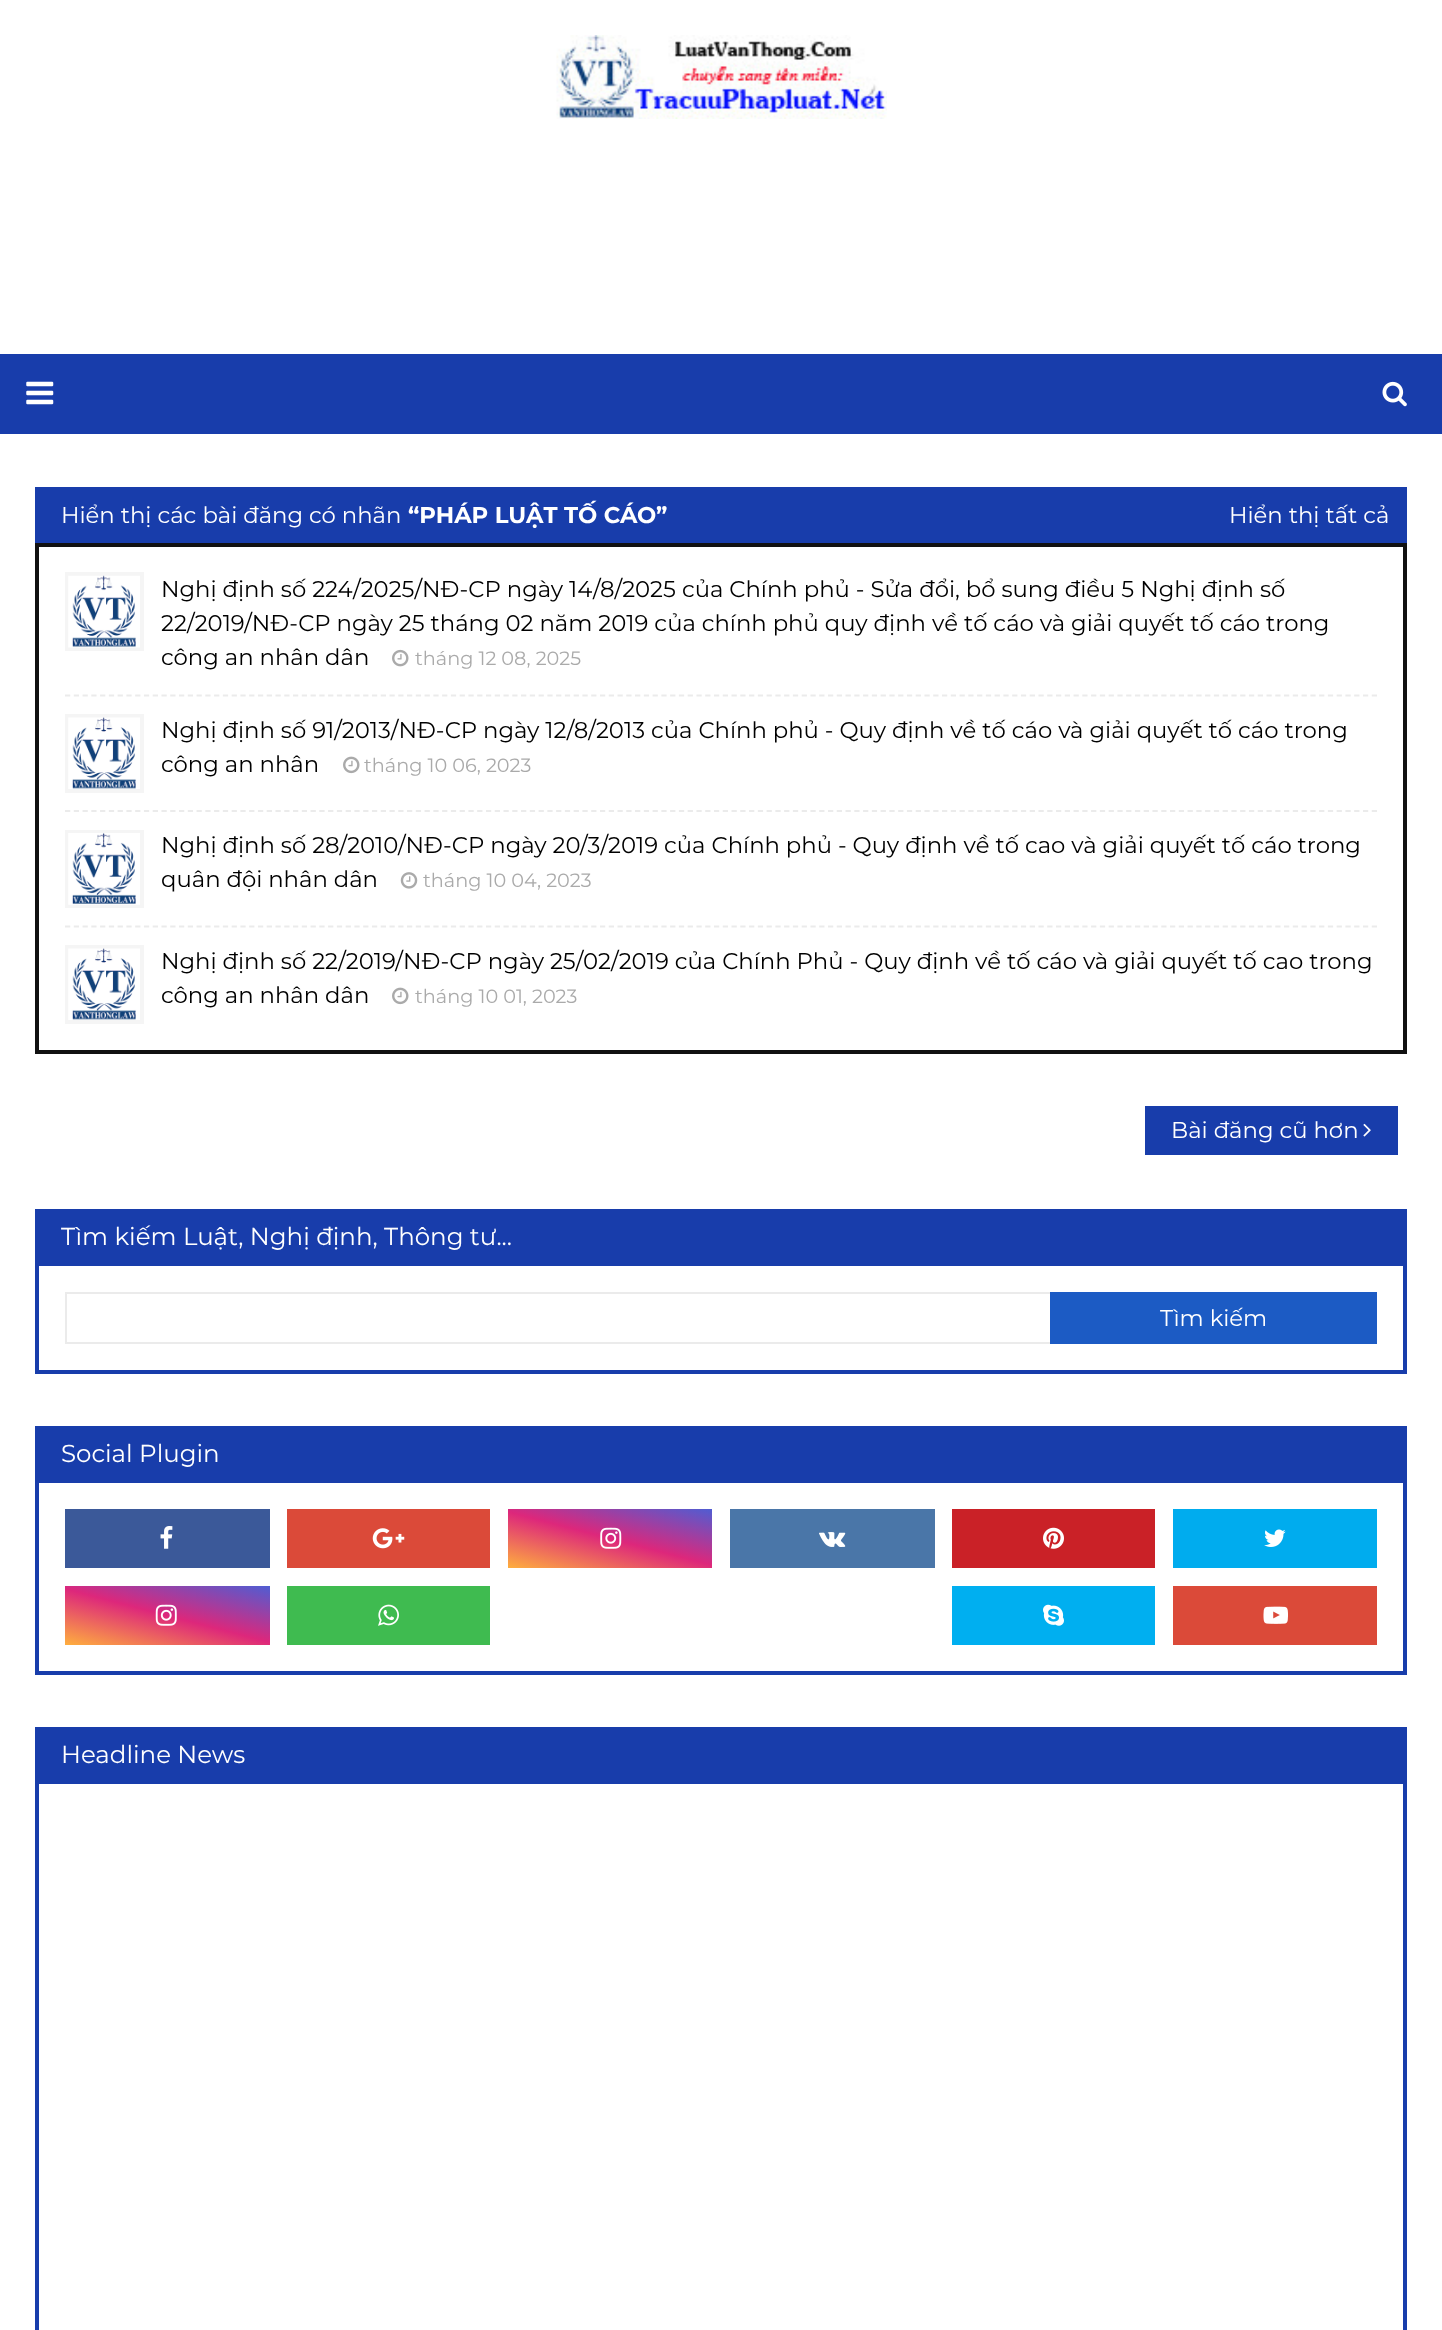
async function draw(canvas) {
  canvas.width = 1442
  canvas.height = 2330
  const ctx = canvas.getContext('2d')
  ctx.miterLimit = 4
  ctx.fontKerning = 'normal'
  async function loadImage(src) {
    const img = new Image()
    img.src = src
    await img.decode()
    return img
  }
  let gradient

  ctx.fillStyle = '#fff'
  ctx.fillRect(0, 0, 1442, 2330)
  ctx.drawImage(await loadImage('image0.png'), 556, 35, 331, 84)
  ctx.fillStyle = '#183dab'
  ctx.fillRect(0, 354, 1442, 80)
  ctx.drawImage(await loadImage('image1.png'), 26, 381, 28, 24)
  ctx.drawImage(await loadImage('image2.png'), 1382, 381, 25, 26)
  ctx.fillRect(35, 487, 1372, 56)
  ctx.font = '100 22.75px Montserrat'
  ctx.fillStyle = '#fff'
  ctx.fillText('Hiển thị các bài đăng có nhãn', 61, 523)
  ctx.font = 'bold 22.75px Montserrat'
  ctx.fillText('“PHÁP LUẬT TỐ CÁO”', 408, 523)
  ctx.font = '100 22.75px Montserrat'
  ctx.fillText('Hiển thị tất cả', 1229, 523)
  ctx.strokeStyle = '#111'
  ctx.lineWidth = 4
  ctx.strokeRect(37, 545, 1368, 507)
  ctx.fillStyle = '#f5f5f5'
  ctx.fillRect(65, 572, 79, 79)
  ctx.drawImage(await loadImage('image3.png'), 68, 575, 72, 73)
  ctx.fillStyle = '#000'
  ctx.fillText('Nghị định số 224/2025/NĐ-CP ngày 14/8/2025 của Chính phủ - Sửa đổi, bổ sung điều 5 Nghị định số', 161, 597)
  ctx.fillText('22/2019/NĐ-CP ngày 25 tháng 02 năm 2019 của chính phủ quy định về tố cáo và giải quyết tố cáo trong', 161, 631)
  ctx.fillText('công an nhân dân', 161, 665)
  ctx.drawImage(await loadImage('image4.png'), 392, 649, 17, 18)
  ctx.font = '100 19.25px Montserrat'
  ctx.fillStyle = '#aaa'
  ctx.fillText('tháng 12 08, 2025', 415, 665)
  ctx.beginPath()
  ctx.moveTo(65, 695.5)
  ctx.lineTo(1377, 695.5)
  ctx.strokeStyle = '#ebebeb'
  ctx.lineWidth = 1.8
  ctx.setLineDash([5.25, 3.52])
  ctx.stroke()
  ctx.fillStyle = '#f5f5f5'
  ctx.fillRect(65, 714, 79, 79)
  ctx.drawImage(await loadImage('image5.png'), 68, 717, 72, 72)
  ctx.font = '100 22.75px Montserrat'
  ctx.fillStyle = '#000'
  ctx.fillText('Nghị định số 91/2013/NĐ-CP ngày 12/8/2013 của Chính phủ - Quy định về tố cáo và giải quyết tố cáo trong', 161, 738)
  ctx.fillText('công an nhân', 161, 772)
  ctx.drawImage(await loadImage('image6.png'), 343, 756, 17, 18)
  ctx.font = '100 19.25px Montserrat'
  ctx.fillStyle = '#aaa'
  ctx.fillText('tháng 10 06, 2023', 364, 772)
  ctx.beginPath()
  ctx.moveTo(65, 811)
  ctx.lineTo(1377, 811)
  ctx.stroke()
  ctx.fillStyle = '#f5f5f5'
  ctx.fillRect(65, 830, 79, 78)
  ctx.drawImage(await loadImage('image7.png'), 68, 833, 72, 72)
  ctx.font = '100 22.75px Montserrat'
  ctx.fillStyle = '#000'
  ctx.fillText('Nghị định số 28/2010/NĐ-CP ngày 20/3/2019 của Chính phủ - Quy định về tố cao và giải quyết tố cáo trong', 161, 853)
  ctx.fillText('quân đội nhân dân', 161, 887)
  ctx.drawImage(await loadImage('image8.png'), 400, 872, 18, 17)
  ctx.font = '100 19.25px Montserrat'
  ctx.fillStyle = '#aaa'
  ctx.fillText('tháng 10 04, 2023', 423, 887)
  ctx.beginPath()
  ctx.moveTo(65, 926.5)
  ctx.lineTo(1377, 926.5)
  ctx.stroke()
  ctx.fillStyle = '#f5f5f5'
  ctx.fillRect(65, 945, 79, 79)
  ctx.drawImage(await loadImage('image5.png'), 68, 948, 72, 72)
  ctx.font = '100 22.75px Montserrat'
  ctx.fillStyle = '#000'
  ctx.fillText('Nghị định số 22/2019/NĐ-CP ngày 25/02/2019 của Chính Phủ - Quy định về tố cáo và giải quyết tố cao trong', 161, 969)
  ctx.fillText('công an nhân dân', 161, 1003)
  ctx.drawImage(await loadImage('image6.png'), 392, 987, 17, 18)
  ctx.font = '100 19.25px Montserrat'
  ctx.fillStyle = '#aaa'
  ctx.fillText('tháng 10 01, 2023', 415, 1003)
  ctx.fillStyle = '#183dab'
  ctx.fillRect(1145, 1106, 253, 49)
  ctx.font = '100 22.75px Montserrat'
  ctx.fillStyle = '#fff'
  ctx.fillText('Bài đăng cũ hơn', 1171, 1138)
  ctx.drawImage(await loadImage('image9.png'), 1363, 1123, 8, 14)
  ctx.fillStyle = '#183dab'
  ctx.fillRect(35, 1209, 1372, 53)
  ctx.font = '100 24.5px Montserrat'
  ctx.fillStyle = '#fff'
  ctx.fillText('Tìm kiếm Luật, Nghị định, Thông tư...', 61, 1245)
  ctx.strokeStyle = '#183dab'
  ctx.lineWidth = 4
  ctx.setLineDash([])
  ctx.strokeRect(37, 1264, 1368, 108)
  ctx.fillStyle = '#ebebeb'
  ctx.fillRect(65, 1292, 985, 2)
  ctx.fillRect(65, 1342, 985, 2)
  ctx.fillRect(65, 1292, 2, 52)
  ctx.fillStyle = '#1c5bc4'
  ctx.fillRect(1050, 1292, 327, 52)
  ctx.font = '100 22.75px Montserrat'
  ctx.fillStyle = '#fff'
  ctx.fillText('Tìm kiếm', 1160, 1326)
  ctx.fillStyle = '#183dab'
  ctx.fillRect(35, 1426, 1372, 53)
  ctx.font = '100 24.5px Montserrat'
  ctx.fillStyle = '#fff'
  ctx.fillText('Social Plugin', 61, 1462)
  ctx.strokeRect(37, 1481, 1368, 192)
  ctx.fillStyle = '#3b5999'
  ctx.fillRect(65, 1509, 205, 59)
  ctx.drawImage(await loadImage('image10.png'), 160, 1526, 13, 23)
  ctx.fillStyle = '#db4a39'
  ctx.fillRect(287, 1509, 203, 59)
  ctx.drawImage(await loadImage('image11.png'), 372, 1528, 33, 21)
  gradient = ctx.createLinearGradient(596, 1592, 624, 1485)
  gradient.addColorStop(0, '#ffb13d')
  gradient.addColorStop(0.5, '#dd277b')
  gradient.addColorStop(1, '#4d5ed4')
  ctx.fillStyle = gradient
  ctx.fillRect(508, 1509, 204, 59)
  ctx.drawImage(await loadImage('image12.png'), 600, 1527, 22, 22)
  ctx.fillStyle = '#4a76a8'
  ctx.fillRect(730, 1509, 205, 59)
  ctx.drawImage(await loadImage('image13.png'), 819, 1532, 27, 15)
  ctx.fillStyle = '#ca2127'
  ctx.fillRect(952, 1509, 203, 59)
  ctx.drawImage(await loadImage('image14.png'), 1043, 1527, 21, 22)
  ctx.fillStyle = '#00acee'
  ctx.fillRect(1173, 1509, 204, 59)
  ctx.drawImage(await loadImage('image15.png'), 1264, 1529, 22, 18)
  gradient = ctx.createLinearGradient(153, 1669, 181, 1562)
  gradient.addColorStop(0, '#ffb13d')
  gradient.addColorStop(0.5, '#dd277b')
  gradient.addColorStop(1, '#4d5ed4')
  ctx.fillStyle = gradient
  ctx.fillRect(65, 1586, 205, 59)
  ctx.drawImage(await loadImage('image16.png'), 155, 1604, 22, 22)
  ctx.fillStyle = '#3fbb50'
  ctx.fillRect(287, 1586, 203, 59)
  ctx.drawImage(await loadImage('image17.png'), 378, 1604, 21, 22)
  ctx.fillStyle = '#00aff0'
  ctx.fillRect(952, 1586, 203, 59)
  ctx.drawImage(await loadImage('image18.png'), 1043, 1604, 21, 22)
  ctx.fillStyle = '#db4a39'
  ctx.fillRect(1173, 1586, 204, 59)
  ctx.drawImage(await loadImage('image19.png'), 1263, 1606, 25, 18)
  ctx.fillStyle = '#183dab'
  ctx.fillRect(35, 1727, 1372, 53)
  ctx.fillStyle = '#fff'
  ctx.fillText('Headline News', 61, 1763)
  ctx.strokeRect(37, 1782, 1368, 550)
}

draw(document.querySelector('canvas'))
